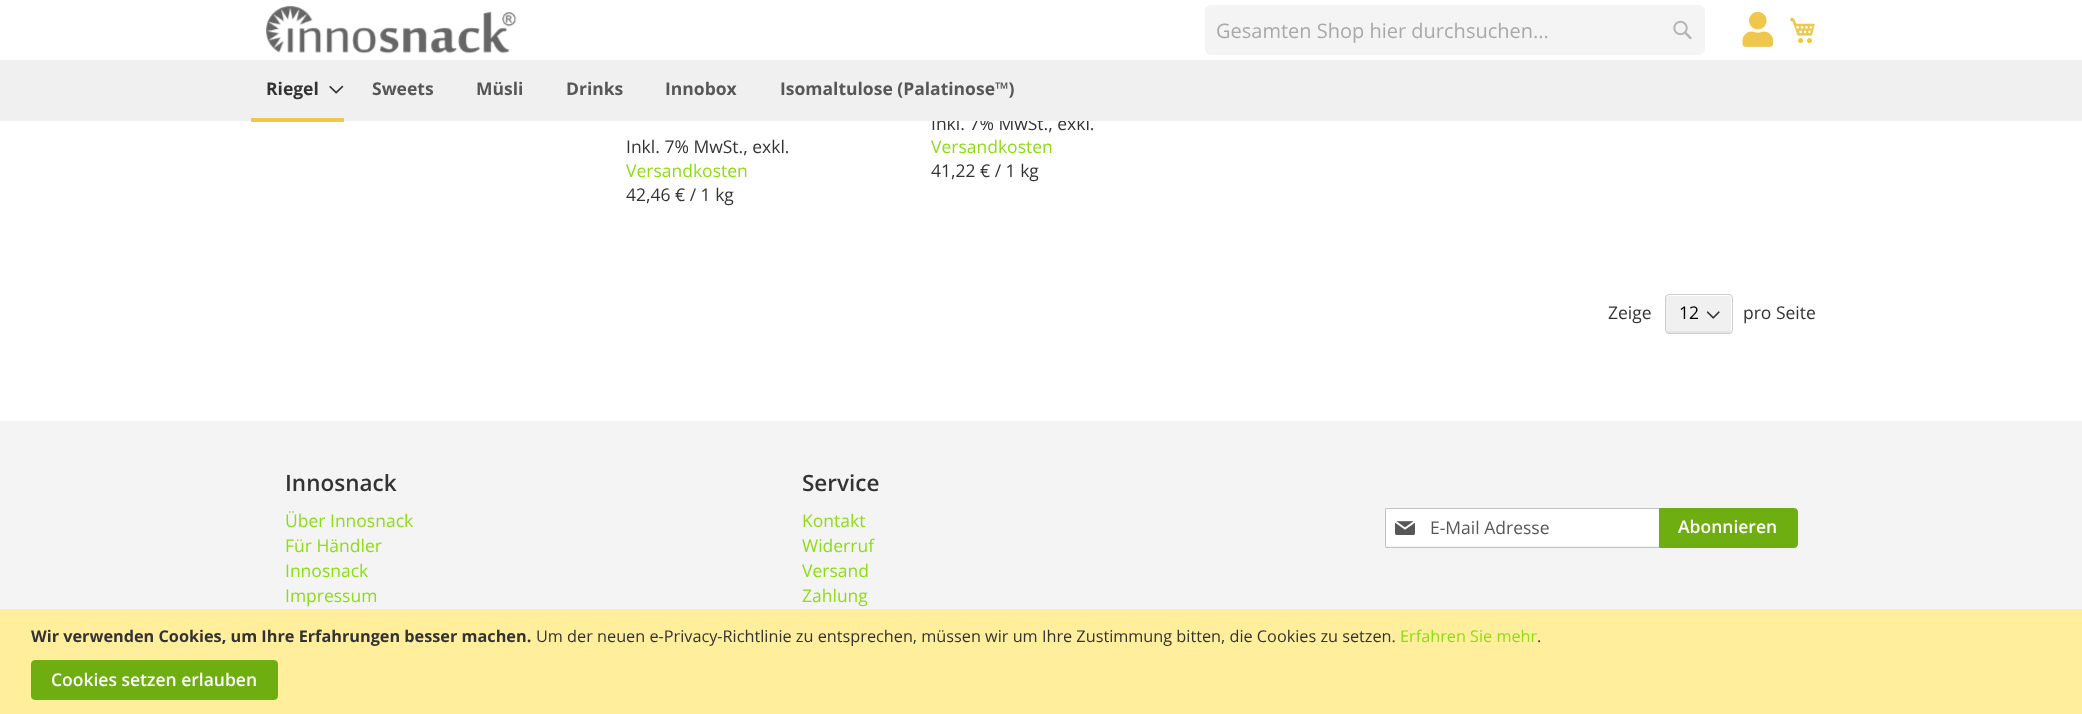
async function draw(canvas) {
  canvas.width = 2082
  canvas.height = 714
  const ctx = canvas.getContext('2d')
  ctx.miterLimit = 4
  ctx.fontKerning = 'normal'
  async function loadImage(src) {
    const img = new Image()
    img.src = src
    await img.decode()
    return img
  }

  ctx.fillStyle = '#fff'
  ctx.fillRect(0, 0, 2082, 714)
  ctx.drawImage(await loadImage('image0.png'), 266, 6, 251, 48)
  ctx.fillStyle = '#f4f4f4'
  ctx.beginPath()
  ctx.roundRect(1205, 5, 500, 50, 6)
  ctx.fill()
  ctx.font = '20px Open Sans'
  ctx.fillStyle = '#a9a9a9'
  ctx.fillText('Gesamten Shop hier durchsuchen...', 1216, 38)
  ctx.drawImage(await loadImage('image1.png'), 1673, 20, 19, 20)
  ctx.drawImage(await loadImage('image2.png'), 1742, 11, 32, 36)
  ctx.drawImage(await loadImage('image3.png'), 1790, 17, 25, 27)
  ctx.font = '17.5px Open Sans'
  ctx.fillStyle = '#333'
  ctx.fillText('Inkl. 7% MwSt., exkl.', 931, 130)
  ctx.fillStyle = '#f0f0f0'
  ctx.fillRect(0, 60, 2082, 61)
  ctx.fillStyle = '#efc74d'
  ctx.fillRect(251, 118, 93, 4)
  ctx.font = 'bold 17.5px Open Sans'
  ctx.fillStyle = '#333'
  ctx.fillText('Riegel', 266, 95)
  ctx.drawImage(await loadImage('image4.png'), 329, 85, 15, 9)
  ctx.fillStyle = '#575757'
  ctx.fillText('Sweets', 372, 95)
  ctx.fillText('Müsli', 476, 95)
  ctx.fillText('Drinks', 566, 95)
  ctx.fillText('Innobox', 665, 95)
  ctx.fillText('Isomaltulose (Palatinose™)', 780, 95)
  ctx.font = '17.5px Open Sans'
  ctx.fillStyle = '#333'
  ctx.fillText('Inkl. 7% MwSt., exkl.', 626, 153)
  ctx.fillStyle = '#8ddc16'
  ctx.fillText('Versandkosten', 626, 177)
  ctx.fillStyle = '#333'
  ctx.fillText('42,46 € / 1 kg', 626, 201)
  ctx.fillStyle = '#8ddc16'
  ctx.fillText('Versandkosten', 931, 153)
  ctx.fillStyle = '#333'
  ctx.fillText('41,22 € / 1 kg', 931, 177)
  ctx.fillText('Zeige', 1608, 319)
  ctx.fillStyle = '#f0f0f0'
  ctx.beginPath()
  ctx.roundRect(1666, 295, 65, 38, 2.5)
  ctx.fill()
  ctx.drawImage(await loadImage('image5.png'), 1706, 311, 14, 8)
  ctx.fillStyle = '#cccccc4d'
  ctx.beginPath()
  ctx.moveTo(1666, 329)
  ctx.bezierCurveTo(1666, 336, 1673, 333, 1678, 333)
  ctx.lineTo(1718, 333)
  ctx.bezierCurveTo(1724, 333, 1731, 336, 1731, 329)
  ctx.bezierCurveTo(1731, 330, 1730, 331, 1729, 331)
  ctx.lineTo(1669, 331)
  ctx.bezierCurveTo(1667, 331, 1666, 330, 1666, 329)
  ctx.closePath()
  ctx.fill()
  ctx.fillStyle = '#fff'
  ctx.beginPath()
  ctx.moveTo(1669, 296)
  ctx.lineTo(1729, 296)
  ctx.bezierCurveTo(1730, 296, 1731, 297, 1731, 299)
  ctx.bezierCurveTo(1731, 292, 1724, 295, 1718, 295)
  ctx.lineTo(1678, 295)
  ctx.bezierCurveTo(1673, 295, 1666, 292, 1666, 299)
  ctx.bezierCurveTo(1666, 297, 1667, 296, 1669, 296)
  ctx.closePath()
  ctx.fill()
  ctx.beginPath()
  ctx.roundRect(1665.5, 294.5, 67, 39, 3.5)
  ctx.strokeStyle = '#ccc'
  ctx.stroke()
  ctx.fillStyle = '#000'
  ctx.fillText('12', 1679, 319)
  ctx.fillStyle = '#333'
  ctx.fillText('pro Seite', 1743, 319)
  ctx.fillStyle = '#f4f4f4'
  ctx.fillRect(0, 421, 2082, 188)
  ctx.font = '600 22.5px Open Sans'
  ctx.fillStyle = '#333'
  ctx.fillText('Innosnack', 285, 491)
  ctx.font = '17.5px Open Sans'
  ctx.fillStyle = '#8ddc16'
  ctx.fillText('Über Innosnack', 285, 527)
  ctx.fillText('Für Händler', 285, 552)
  ctx.fillText('Innosnack', 285, 577)
  ctx.fillText('Impressum', 285, 602)
  ctx.font = '600 22.5px Open Sans'
  ctx.fillStyle = '#333'
  ctx.fillText('Service', 802, 491)
  ctx.font = '17.5px Open Sans'
  ctx.fillStyle = '#8ddc16'
  ctx.fillText('Kontakt', 802, 527)
  ctx.fillText('Widerruf', 802, 552)
  ctx.fillText('Versand', 802, 577)
  ctx.fillText('Zahlung', 802, 602)
  ctx.fillStyle = '#fff'
  ctx.fillRect(1386, 509, 273, 37)
  ctx.beginPath()
  ctx.roundRect(1385.5, 508.5, 274, 39, 0.5)
  ctx.strokeStyle = '#c2c2c2'
  ctx.stroke()
  ctx.drawImage(await loadImage('image6.png'), 1395, 521, 20, 14)
  ctx.fillStyle = '#575757'
  ctx.fillText('E-Mail Adresse', 1430, 534)
  ctx.fillStyle = '#6fae11'
  ctx.beginPath()
  ctx.roundRect(1659.5, 508.5, 138, 39, [0, 3.5, 3.5, 0])
  ctx.fill()
  ctx.strokeStyle = '#6fae11'
  ctx.stroke()
  ctx.font = '600 17.5px Open Sans'
  ctx.fillStyle = '#fff'
  ctx.fillText('Abonnieren', 1678, 533)
  ctx.fillStyle = '#ffee9c'
  ctx.fillRect(0, 609, 2082, 105)
  ctx.font = 'bold 16.25px Open Sans'
  ctx.fillStyle = '#333'
  ctx.fillText('Wir verwenden Cookies, um Ihre Erfahrungen besser machen.', 31, 642)
  ctx.font = '16.25px Open Sans'
  ctx.fillText('Um der neuen e-Privacy-Richtlinie zu entsprechen, müssen wir um Ihre Zustimmung bitten, die Cookies zu setzen.', 536, 642)
  ctx.fillStyle = '#8ddc16'
  ctx.fillText('Erfahren Sie mehr', 1400, 642)
  ctx.fillStyle = '#333'
  ctx.fillText('.', 1537, 642)
  ctx.fillStyle = '#6fae11'
  ctx.beginPath()
  ctx.roundRect(31.5, 660.5, 246, 39, 3.5)
  ctx.fill()
  ctx.stroke()
  ctx.font = '600 17.5px Open Sans'
  ctx.fillStyle = '#fff'
  ctx.fillText('Cookies setzen erlauben', 51, 686)
}

draw(document.querySelector('canvas'))
